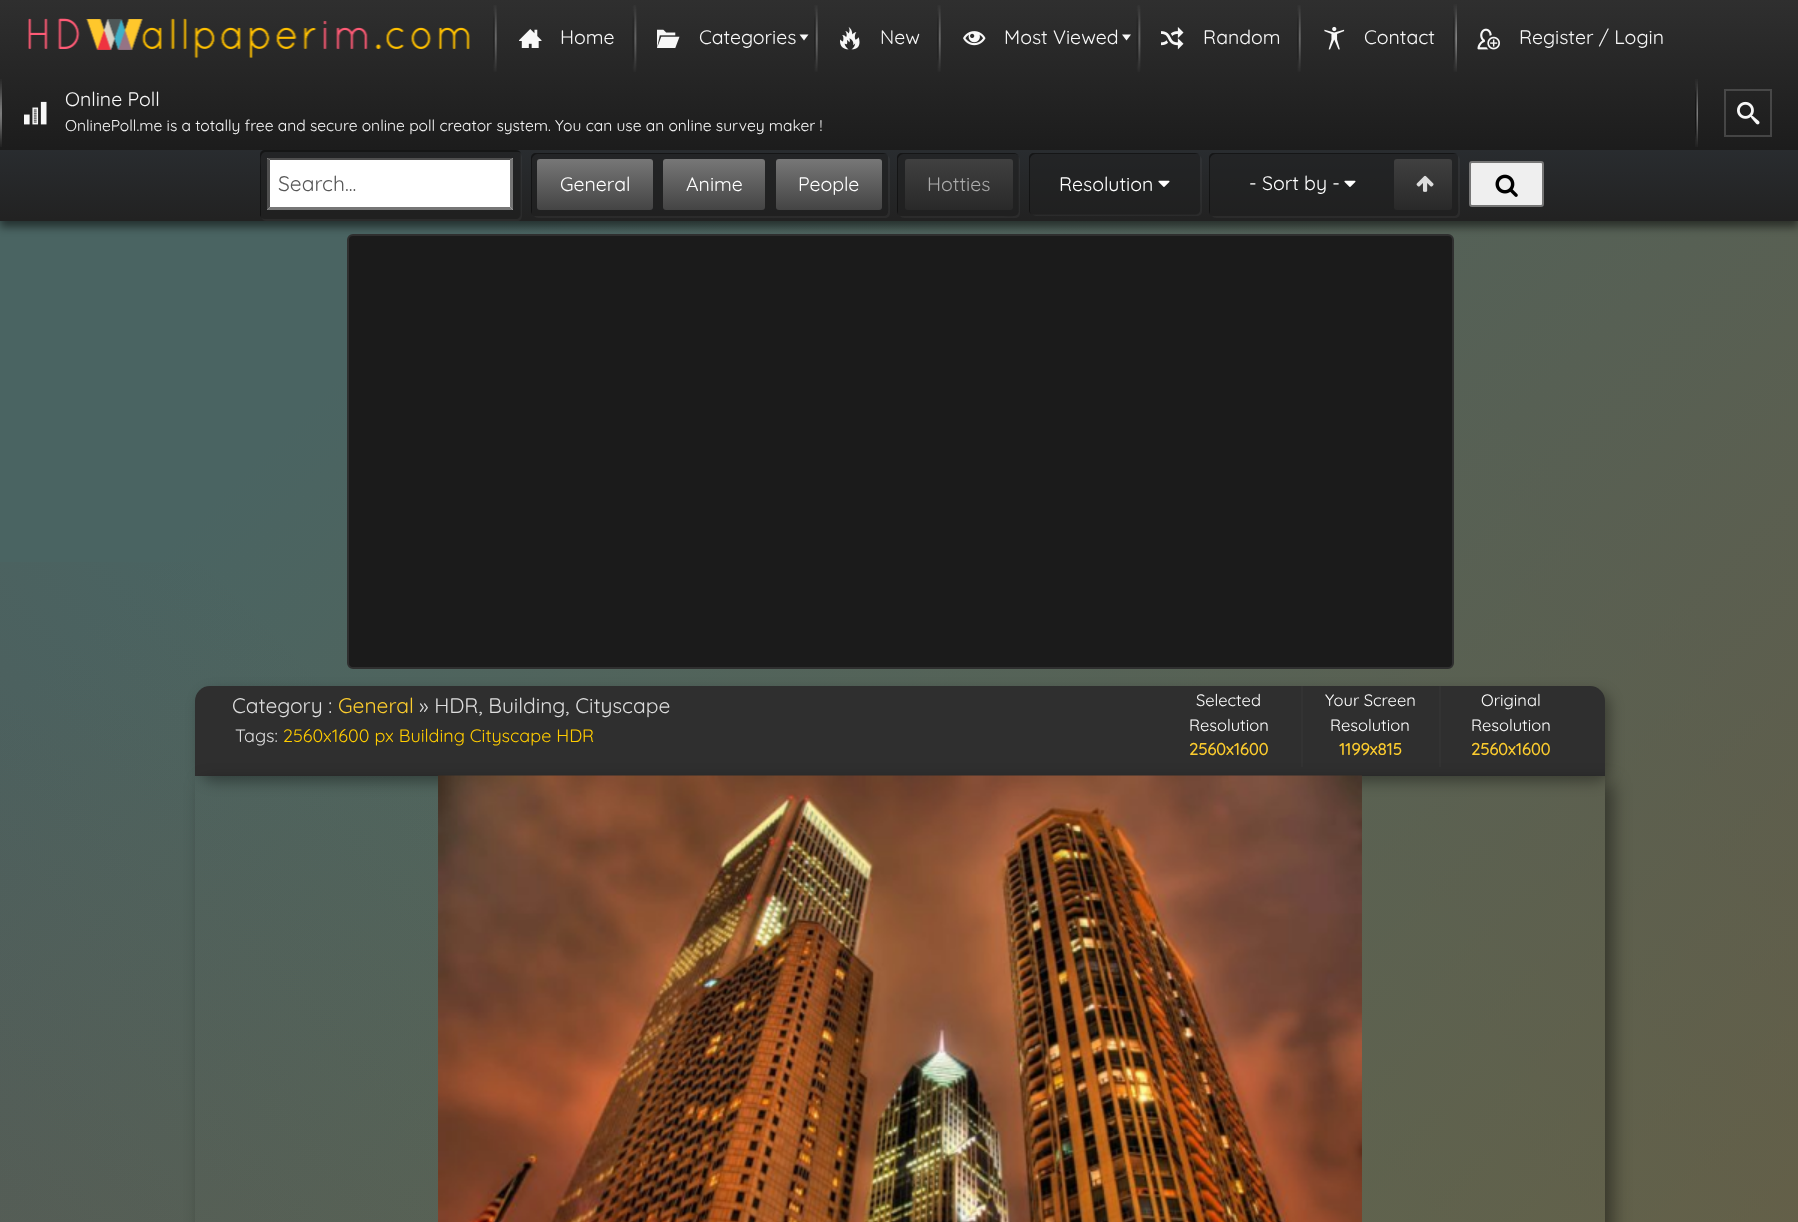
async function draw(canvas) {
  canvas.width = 1798
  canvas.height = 1222
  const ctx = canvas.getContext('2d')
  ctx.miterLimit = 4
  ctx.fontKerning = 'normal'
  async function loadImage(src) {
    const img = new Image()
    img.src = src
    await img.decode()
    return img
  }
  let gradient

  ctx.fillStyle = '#fff'
  ctx.fillRect(0, 0, 1798, 1222)
  gradient = ctx.createLinearGradient(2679, 880, -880, 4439)
  gradient.addColorStop(0.1, '#7f5429')
  gradient.addColorStop(0.8, '#939339')
  ctx.fillStyle = gradient
  ctx.fillRect(0, 221, 1798, 1001)
  gradient = ctx.createLinearGradient(-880, 880, 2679, 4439)
  gradient.addColorStop(0.1, '#4a6462')
  gradient.addColorStop(0.8, '#4a646200')
  ctx.fillStyle = gradient
  ctx.fillRect(0, 221, 1798, 1001)
  gradient = ctx.createLinearGradient(-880, 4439, 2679, 880)
  gradient.addColorStop(0, '#693735')
  gradient.addColorStop(0.7, '#69373500')
  ctx.fillStyle = gradient
  ctx.fillRect(0, 562, 438, 660)
  ctx.fillStyle = '#00000080'
  ctx.filter = 'blur(4px)'
  ctx.beginPath()
  ctx.rect(0, 158, 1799, 69)
  ctx.fill()
  ctx.filter = 'none'
  ctx.strokeStyle = '#222'
  ctx.lineWidth = 2
  ctx.strokeRect(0, 150, 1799, 70)
  gradient = ctx.createLinearGradient(899, 0, 899, 150)
  gradient.addColorStop(0, '#2f2f2f')
  gradient.addColorStop(1, '#1c1c1c')
  ctx.fillStyle = gradient
  ctx.fillRect(0, 0, 1798, 150)
  ctx.drawImage(await loadImage('image0.png'), 28, 18, 442, 40)
  ctx.drawImage(await loadImage('image1.png'), 493, 5, 4, 67)
  ctx.drawImage(await loadImage('image2.png'), 519, 29, 23, 19)
  ctx.font = '300 19.5px Quicksand'
  ctx.fillStyle = '#f8f8f8'
  ctx.fillText('Home', 560, 44)
  ctx.drawImage(await loadImage('image3.png'), 632, 5, 5, 67)
  ctx.drawImage(await loadImage('image4.png'), 657, 29, 23, 19)
  ctx.fillText('Categories', 699, 44)
  ctx.beginPath()
  ctx.moveTo(799.5, 34.5)
  ctx.lineTo(808.5, 34.5)
  ctx.lineTo(804, 40.5)
  ctx.closePath()
  ctx.fill()
  ctx.drawImage(await loadImage('image1.png'), 814, 5, 4, 67)
  ctx.drawImage(await loadImage('image5.png'), 840, 27, 20, 23)
  ctx.fillText('New', 880, 44)
  ctx.drawImage(await loadImage('image1.png'), 937, 5, 4, 67)
  ctx.drawImage(await loadImage('image6.png'), 963, 31, 23, 15)
  ctx.fillText('Most Viewed', 1004, 44)
  ctx.beginPath()
  ctx.moveTo(1122, 34.5)
  ctx.lineTo(1131, 34.5)
  ctx.lineTo(1126.5, 40.5)
  ctx.closePath()
  ctx.fill()
  ctx.drawImage(await loadImage('image3.png'), 1136, 5, 5, 67)
  ctx.drawImage(await loadImage('image7.png'), 1161, 27, 23, 23)
  ctx.fillText('Random', 1203, 44)
  ctx.drawImage(await loadImage('image1.png'), 1297, 5, 4, 67)
  ctx.drawImage(await loadImage('image8.png'), 1324, 26, 21, 24)
  ctx.fillText('Contact', 1364, 44)
  ctx.drawImage(await loadImage('image9.png'), 1453, 4, 4, 68)
  ctx.drawImage(await loadImage('image10.png'), 1477, 28, 23, 22)
  ctx.fillText('Register / Login', 1519, 44)
  ctx.drawImage(await loadImage('image11.png'), 0, 79, 2, 68)
  ctx.drawImage(await loadImage('image12.png'), 24, 101, 23, 24)
  ctx.fillText('Online Poll', 65, 106)
  ctx.font = '300 15.6px Quicksand'
  ctx.fillText('OnlinePoll.me is a totally free and secure online poll creator system. You can use an online survey maker !', 65, 131)
  ctx.drawImage(await loadImage('image13.png'), 1695, 79, 3, 68)
  ctx.strokeStyle = '#80808066'
  ctx.strokeRect(1725, 90, 46, 46)
  ctx.drawImage(await loadImage('image14.png'), 1737, 101, 23, 24)
  gradient = ctx.createLinearGradient(899, 150, 899, 219)
  gradient.addColorStop(0, '#292c2f')
  gradient.addColorStop(1, '#222')
  ctx.fillStyle = gradient
  ctx.fillRect(0, 150, 1798, 69)
  ctx.fillStyle = '#7f7f7f1a'
  ctx.beginPath()
  ctx.moveTo(262, 218)
  ctx.bezierCurveTo(262, 220, 264, 221, 266, 221)
  ctx.lineTo(517, 221)
  ctx.bezierCurveTo(520, 221, 522, 219, 522, 216)
  ctx.lineTo(522, 157)
  ctx.bezierCurveTo(522, 156, 521, 154, 520, 153)
  ctx.lineTo(520, 214)
  ctx.bezierCurveTo(520, 217, 518, 219, 516, 219)
  ctx.lineTo(264, 219)
  ctx.closePath()
  ctx.fill()
  ctx.fillStyle = '#1e1e1e80'
  ctx.beginPath()
  ctx.roundRect(260, 150, 261, 69, 5)
  ctx.fill()
  ctx.fillStyle = '#00000066'
  ctx.beginPath()
  ctx.moveTo(266, 152)
  ctx.lineTo(518, 152)
  ctx.bezierCurveTo(519, 152, 520, 152, 521, 153)
  ctx.bezierCurveTo(520, 151, 518, 150, 516, 150)
  ctx.lineTo(265, 150)
  ctx.bezierCurveTo(262, 150, 260, 152, 260, 155)
  ctx.lineTo(260, 214)
  ctx.bezierCurveTo(260, 215, 260, 216, 261, 217)
  ctx.lineTo(261, 166)
  ctx.bezierCurveTo(261, 162, 259, 152, 266, 152)
  ctx.closePath()
  ctx.fill()
  ctx.fillStyle = '#fff'
  ctx.fillRect(267, 158, 246, 52)
  ctx.fillStyle = '#4f4f4f'
  ctx.beginPath()
  ctx.moveTo(267, 158)
  ctx.lineTo(513, 158)
  ctx.lineTo(510, 160)
  ctx.lineTo(270, 160)
  ctx.closePath()
  ctx.fill()
  ctx.fillStyle = '#767676'
  ctx.beginPath()
  ctx.moveTo(513, 158)
  ctx.lineTo(513, 210)
  ctx.lineTo(510, 207)
  ctx.lineTo(510, 160)
  ctx.closePath()
  ctx.fill()
  ctx.beginPath()
  ctx.moveTo(513, 210)
  ctx.lineTo(267, 210)
  ctx.lineTo(270, 207)
  ctx.lineTo(510, 207)
  ctx.closePath()
  ctx.fill()
  ctx.fillStyle = '#4f4f4f'
  ctx.beginPath()
  ctx.moveTo(267, 210)
  ctx.lineTo(267, 158)
  ctx.lineTo(270, 160)
  ctx.lineTo(270, 207)
  ctx.closePath()
  ctx.fill()
  ctx.font = '300 21px Quicksand'
  ctx.fillStyle = '#575757'
  ctx.fillText('Search...', 278, 191)
  ctx.fillStyle = '#7f7f7f1a'
  ctx.beginPath()
  ctx.moveTo(534, 216)
  ctx.bezierCurveTo(535, 217, 536, 218, 538, 218)
  ctx.lineTo(885, 218)
  ctx.bezierCurveTo(888, 218, 890, 216, 890, 213)
  ctx.lineTo(890, 160)
  ctx.bezierCurveTo(890, 158, 889, 157, 888, 156)
  ctx.lineTo(888, 202)
  ctx.bezierCurveTo(888, 206, 890, 216, 884, 216)
  ctx.closePath()
  ctx.fill()
  ctx.fillStyle = '#1e1e1e80'
  ctx.beginPath()
  ctx.roundRect(531, 153, 357, 63, 5)
  ctx.fill()
  ctx.fillStyle = '#00000066'
  ctx.beginPath()
  ctx.moveTo(537, 154)
  ctx.lineTo(885, 154)
  ctx.lineTo(887, 154)
  ctx.bezierCurveTo(886, 154, 884, 153, 883, 153)
  ctx.lineTo(536, 153)
  ctx.bezierCurveTo(533, 153, 531, 155, 531, 158)
  ctx.lineTo(531, 211)
  ctx.bezierCurveTo(531, 212, 532, 214, 532, 215)
  ctx.lineTo(532, 213)
  ctx.lineTo(532, 159)
  ctx.bezierCurveTo(532, 157, 535, 154, 537, 154)
  ctx.closePath()
  ctx.fill()
  gradient = ctx.createLinearGradient(595, 159, 595, 210)
  gradient.addColorStop(0, '#777')
  gradient.addColorStop(1, '#444')
  ctx.fillStyle = gradient
  ctx.beginPath()
  ctx.roundRect(537, 159, 116, 51, 3)
  ctx.fill()
  ctx.font = '300 19.5px Quicksand'
  ctx.fillStyle = '#fff'
  ctx.fillText('General', 560, 191)
  gradient = ctx.createLinearGradient(714, 159, 714, 210)
  gradient.addColorStop(0, '#777')
  gradient.addColorStop(1, '#444')
  ctx.fillStyle = gradient
  ctx.beginPath()
  ctx.roundRect(663, 159, 102, 51, 3)
  ctx.fill()
  ctx.fillStyle = '#fff'
  ctx.fillText('Anime', 686, 191)
  gradient = ctx.createLinearGradient(829, 159, 829, 210)
  gradient.addColorStop(0, '#777')
  gradient.addColorStop(1, '#444')
  ctx.fillStyle = gradient
  ctx.beginPath()
  ctx.roundRect(776, 159, 106, 51, 3)
  ctx.fill()
  ctx.fillStyle = '#fff'
  ctx.fillText('People', 798, 191)
  ctx.fillStyle = '#7f7f7f1a'
  ctx.beginPath()
  ctx.moveTo(900, 216)
  ctx.bezierCurveTo(901, 217, 902, 218, 904, 218)
  ctx.lineTo(1015, 218)
  ctx.bezierCurveTo(1018, 218, 1020, 216, 1020, 213)
  ctx.lineTo(1020, 160)
  ctx.bezierCurveTo(1020, 159, 1019, 157, 1018, 156)
  ctx.lineTo(1018, 194)
  ctx.bezierCurveTo(1018, 220, 1023, 216, 995, 216)
  ctx.closePath()
  ctx.fill()
  ctx.fillStyle = '#1e1e1e80'
  ctx.beginPath()
  ctx.roundRect(897, 153, 122, 63, 5)
  ctx.fill()
  ctx.fillStyle = '#00000066'
  ctx.beginPath()
  ctx.moveTo(903, 154)
  ctx.lineTo(1016, 154)
  ctx.lineTo(1018, 155)
  ctx.bezierCurveTo(1017, 154, 1016, 153, 1014, 153)
  ctx.lineTo(902, 153)
  ctx.bezierCurveTo(899, 153, 897, 155, 897, 158)
  ctx.lineTo(897, 211)
  ctx.bezierCurveTo(897, 212, 898, 214, 898, 215)
  ctx.lineTo(898, 213)
  ctx.lineTo(898, 159)
  ctx.bezierCurveTo(898, 157, 901, 154, 903, 154)
  ctx.closePath()
  ctx.fill()
  gradient = ctx.createLinearGradient(959, 159, 959, 210)
  gradient.addColorStop(0, '#404040')
  gradient.addColorStop(1, '#292929')
  ctx.fillStyle = gradient
  ctx.beginPath()
  ctx.roundRect(905, 159, 108, 51, 3)
  ctx.fill()
  ctx.fillStyle = '#aaa'
  ctx.fillText('Hotties', 927, 191)
  ctx.fillStyle = '#7f7f7f1a'
  ctx.beginPath()
  ctx.moveTo(1032, 214)
  ctx.bezierCurveTo(1033, 215, 1035, 216, 1036, 216)
  ctx.lineTo(1197, 216)
  ctx.bezierCurveTo(1200, 216, 1202, 214, 1202, 211)
  ctx.lineTo(1202, 160)
  ctx.bezierCurveTo(1202, 158, 1201, 157, 1200, 156)
  ctx.lineTo(1200, 201)
  ctx.bezierCurveTo(1200, 204, 1202, 214, 1196, 214)
  ctx.closePath()
  ctx.fill()
  ctx.fillStyle = '#1e1e1e80'
  ctx.beginPath()
  ctx.roundRect(1029, 153, 171, 62, 5)
  ctx.fill()
  ctx.fillStyle = '#00000066'
  ctx.beginPath()
  ctx.moveTo(1035, 154)
  ctx.lineTo(1197, 154)
  ctx.lineTo(1199, 154)
  ctx.bezierCurveTo(1198, 154, 1196, 153, 1195, 153)
  ctx.lineTo(1034, 153)
  ctx.bezierCurveTo(1031, 153, 1029, 155, 1029, 158)
  ctx.lineTo(1029, 210)
  ctx.bezierCurveTo(1029, 212, 1030, 213, 1031, 214)
  ctx.lineTo(1030, 212)
  ctx.lineTo(1030, 159)
  ctx.bezierCurveTo(1030, 157, 1033, 154, 1035, 154)
  ctx.closePath()
  ctx.fill()
  ctx.fillStyle = '#fff'
  ctx.fillText('Resolution', 1059, 191)
  ctx.drawImage(await loadImage('image15.png'), 1158, 180, 12, 7)
  ctx.fillStyle = '#7f7f7f1a'
  ctx.beginPath()
  ctx.moveTo(1212, 216)
  ctx.bezierCurveTo(1213, 217, 1214, 218, 1216, 218)
  ctx.lineTo(1455, 218)
  ctx.bezierCurveTo(1458, 218, 1460, 216, 1460, 213)
  ctx.lineTo(1460, 160)
  ctx.bezierCurveTo(1460, 158, 1459, 157, 1458, 156)
  ctx.lineTo(1458, 202)
  ctx.bezierCurveTo(1458, 206, 1460, 216, 1454, 216)
  ctx.closePath()
  ctx.fill()
  ctx.fillStyle = '#1e1e1e80'
  ctx.beginPath()
  ctx.roundRect(1209, 153, 249, 63, 5)
  ctx.fill()
  ctx.fillStyle = '#00000066'
  ctx.beginPath()
  ctx.moveTo(1215, 154)
  ctx.lineTo(1455, 154)
  ctx.lineTo(1457, 154)
  ctx.bezierCurveTo(1456, 154, 1454, 153, 1453, 153)
  ctx.lineTo(1214, 153)
  ctx.bezierCurveTo(1211, 153, 1209, 155, 1209, 158)
  ctx.lineTo(1209, 211)
  ctx.bezierCurveTo(1209, 212, 1210, 214, 1210, 215)
  ctx.lineTo(1210, 213)
  ctx.lineTo(1210, 159)
  ctx.bezierCurveTo(1210, 157, 1213, 154, 1215, 154)
  ctx.closePath()
  ctx.fill()
  ctx.fillStyle = '#fff'
  ctx.fillText('- Sort by -', 1249, 190)
  ctx.drawImage(await loadImage('image15.png'), 1344, 180, 12, 7)
  gradient = ctx.createLinearGradient(1423, 159, 1423, 210)
  gradient.addColorStop(0, '#404040')
  gradient.addColorStop(1, '#292929')
  ctx.fillStyle = gradient
  ctx.beginPath()
  ctx.roundRect(1394, 159, 58, 51, 3)
  ctx.fill()
  ctx.drawImage(await loadImage('image16.png'), 1416, 175, 18, 17)
  ctx.fillStyle = '#efefef'
  ctx.beginPath()
  ctx.roundRect(1470, 162, 73, 44, 2)
  ctx.fill()
  ctx.strokeStyle = '#767676'
  ctx.stroke()
  ctx.drawImage(await loadImage('image17.png'), 1495, 174, 23, 23)
  ctx.fillStyle = '#1b1b1b'
  ctx.beginPath()
  ctx.roundRect(348, 235, 1105, 433, 5)
  ctx.fill()
  ctx.strokeStyle = '#2f2f2f'
  ctx.stroke()
  ctx.fillStyle = '#00000057'
  ctx.filter = 'blur(7px)'
  ctx.beginPath()
  ctx.roundRect(200, 692, 1410, 90, 15)
  ctx.fill()
  ctx.filter = 'none'
  ctx.fillStyle = '#2f2f2f'
  ctx.beginPath()
  ctx.roundRect(195, 686, 1410, 90, [15, 15, 0, 0])
  ctx.fill()
  ctx.save()
  ctx.beginPath()
  ctx.rect(233, 692, 783, 31)
  ctx.clip()
  ctx.font = '300 21px Quicksand'
  ctx.fillStyle = '#ddd'
  ctx.fillText('Category :', 232, 713)
  ctx.restore()
  ctx.font = '300 21px Quicksand'
  ctx.fillStyle = '#fccc2e'
  ctx.fillText('General', 338, 713)
  ctx.fillStyle = '#ddd'
  ctx.fillText('» HDR, Building, Cityscape', 419, 713)
  ctx.font = '300 18px Quicksand'
  ctx.fillText('Tags:', 235, 742)
  ctx.fillStyle = '#fc0'
  ctx.fillText('2560x1600 px Building Cityscape HDR', 283, 742)
  ctx.font = '300 16.5px Quicksand'
  ctx.fillStyle = '#fff'
  ctx.fillText('Selected', 1196, 706)
  ctx.fillText('Resolution', 1189, 731)
  ctx.font = 'bold 16.5px Quicksand'
  ctx.fillStyle = '#fccc2e'
  ctx.fillText('2560x1600', 1189, 755)
  ctx.fillStyle = '#333'
  ctx.fillRect(1439, 686, 2, 81)
  ctx.fillRect(1301, 686, 2, 81)
  ctx.font = '300 16.5px Quicksand'
  ctx.fillStyle = '#fff'
  ctx.fillText('Your Screen', 1325, 706)
  ctx.fillText('Resolution', 1330, 731)
  ctx.font = 'bold 16.5px Quicksand'
  ctx.fillStyle = '#fccc2e'
  ctx.fillText('1199x815', 1339, 755)
  ctx.font = '300 16.5px Quicksand'
  ctx.fillStyle = '#fff'
  ctx.fillText('Original', 1481, 706)
  ctx.fillText('Resolution', 1471, 731)
  ctx.font = 'bold 16.5px Quicksand'
  ctx.fillStyle = '#fccc2e'
  ctx.fillText('2560x1600', 1471, 755)
  ctx.save()
  ctx.beginPath()
  ctx.moveTo(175, 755)
  ctx.lineTo(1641, 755)
  ctx.lineTo(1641, 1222)
  ctx.lineTo(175, 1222)
  ctx.closePath()
  ctx.moveTo(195, 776)
  ctx.lineTo(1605, 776)
  ctx.lineTo(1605, 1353)
  ctx.lineTo(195, 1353)
  ctx.closePath()
  ctx.clip('evenodd')
  ctx.fillStyle = '#00000070'
  ctx.filter = 'blur(9px)'
  ctx.beginPath()
  ctx.rect(203, 783, 1410, 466)
  ctx.fill()
  ctx.filter = 'none'
  ctx.restore()
  ctx.drawImage(await loadImage('image18.png'), 438, 775, 924, 447)
}

draw(document.querySelector('canvas'))
